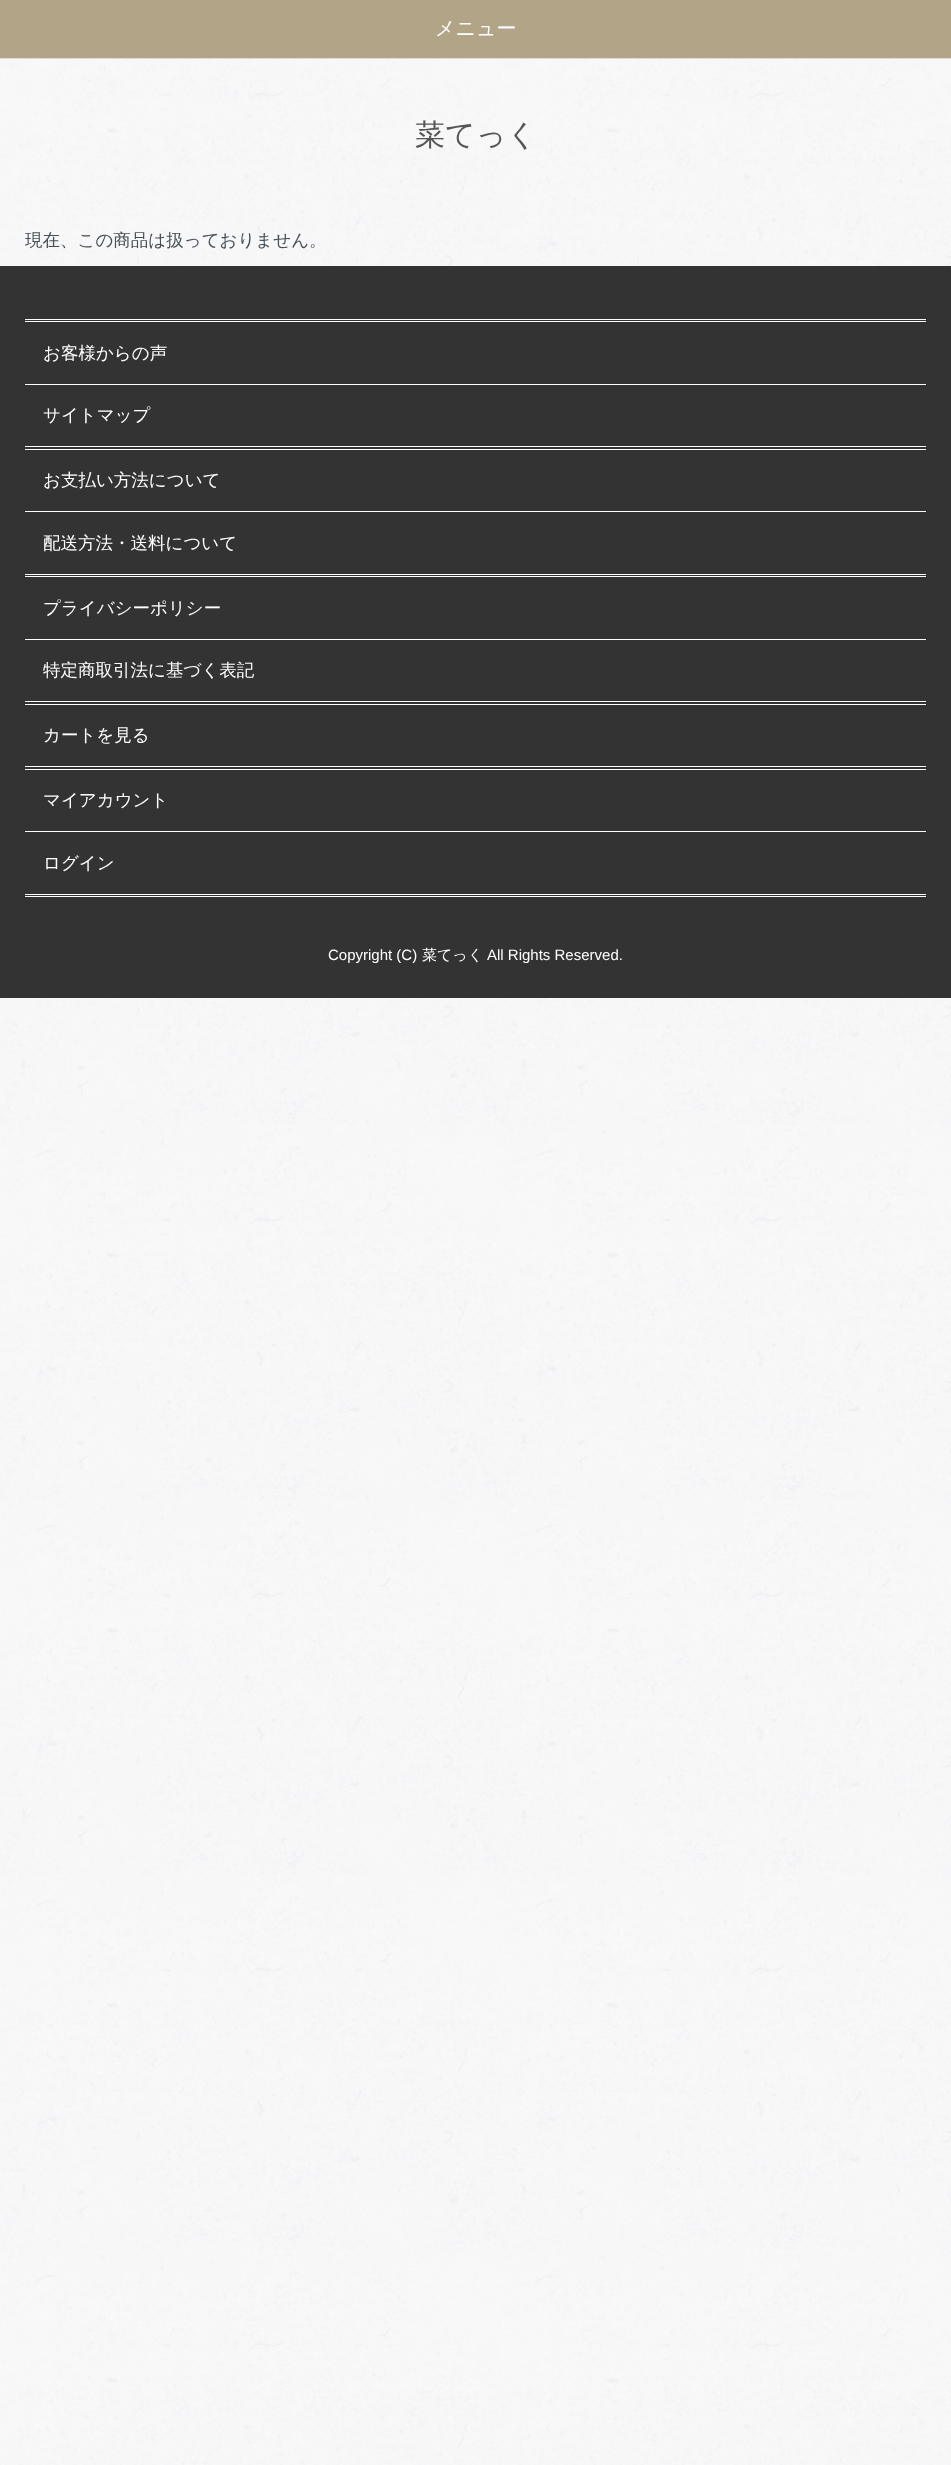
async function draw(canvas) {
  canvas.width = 951
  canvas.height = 2465
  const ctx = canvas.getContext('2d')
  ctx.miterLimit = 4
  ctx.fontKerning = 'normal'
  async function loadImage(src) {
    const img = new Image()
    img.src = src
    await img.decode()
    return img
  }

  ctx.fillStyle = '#fff'
  ctx.fillRect(0, 0, 951, 2465)
  ctx.drawImage(await loadImage('image0.png'), 0, 59, 951, 2406)
  ctx.fillStyle = '#dbdbdb'
  ctx.fillRect(0, 58, 951, 1)
  ctx.fillStyle = '#b2a487'
  ctx.fillRect(0, 0, 951, 58)
  ctx.font = '500 20px WenQuanYi Zen Hei'
  ctx.fillStyle = '#fff'
  ctx.fillText('メニュー', 435, 35)
  ctx.font = '500 30px WenQuanYi Zen Hei'
  ctx.fillStyle = '#555'
  ctx.fillText('菜てっく', 415, 145)
  ctx.font = '500 17.5px WenQuanYi Zen Hei'
  ctx.fillStyle = '#464e54'
  ctx.fillText('現在、この商品は扱っておりません。', 25, 246)
  ctx.fillStyle = '#333'
  ctx.fillRect(0, 266, 951, 732)
  ctx.fillStyle = '#fff'
  ctx.fillRect(25, 319, 901, 1)
  ctx.fillRect(25, 321, 901, 1)
  ctx.fillRect(25, 446, 901, 1)
  ctx.fillRect(25, 449, 901, 1)
  ctx.fillText('お客様からの声', 43, 359)
  ctx.fillRect(25, 384, 901, 1)
  ctx.fillText('サイトマップ', 43, 421)
  ctx.fillRect(25, 574, 901, 1)
  ctx.fillRect(25, 576, 901, 1)
  ctx.fillText('お支払い方法について', 43, 486)
  ctx.fillRect(25, 511, 901, 1)
  ctx.fillText('配送方法・送料について', 43, 549)
  ctx.fillRect(25, 701, 901, 1)
  ctx.fillRect(25, 704, 901, 1)
  ctx.fillText('プライバシーポリシー', 43, 614)
  ctx.fillRect(25, 639, 901, 1)
  ctx.fillText('特定商取引法に基づく表記', 43, 676)
  ctx.fillRect(25, 766, 901, 1)
  ctx.fillRect(25, 769, 901, 1)
  ctx.fillText('カートを見る', 43, 741)
  ctx.fillRect(25, 894, 901, 1)
  ctx.fillRect(25, 896, 901, 1)
  ctx.fillText('マイアカウント', 43, 806)
  ctx.fillRect(25, 831, 901, 1)
  ctx.fillText('ログイン', 43, 869)
  ctx.font = '15px Liberation Sans'
  ctx.fillText('Copyright (C)', 328, 960)
  ctx.font = '500 15px WenQuanYi Zen Hei'
  ctx.fillText('菜てっく', 422, 960)
  ctx.font = '15px Liberation Sans'
  ctx.fillText('All Rights Reserved.', 487, 960)
}

draw(document.querySelector('canvas'))
